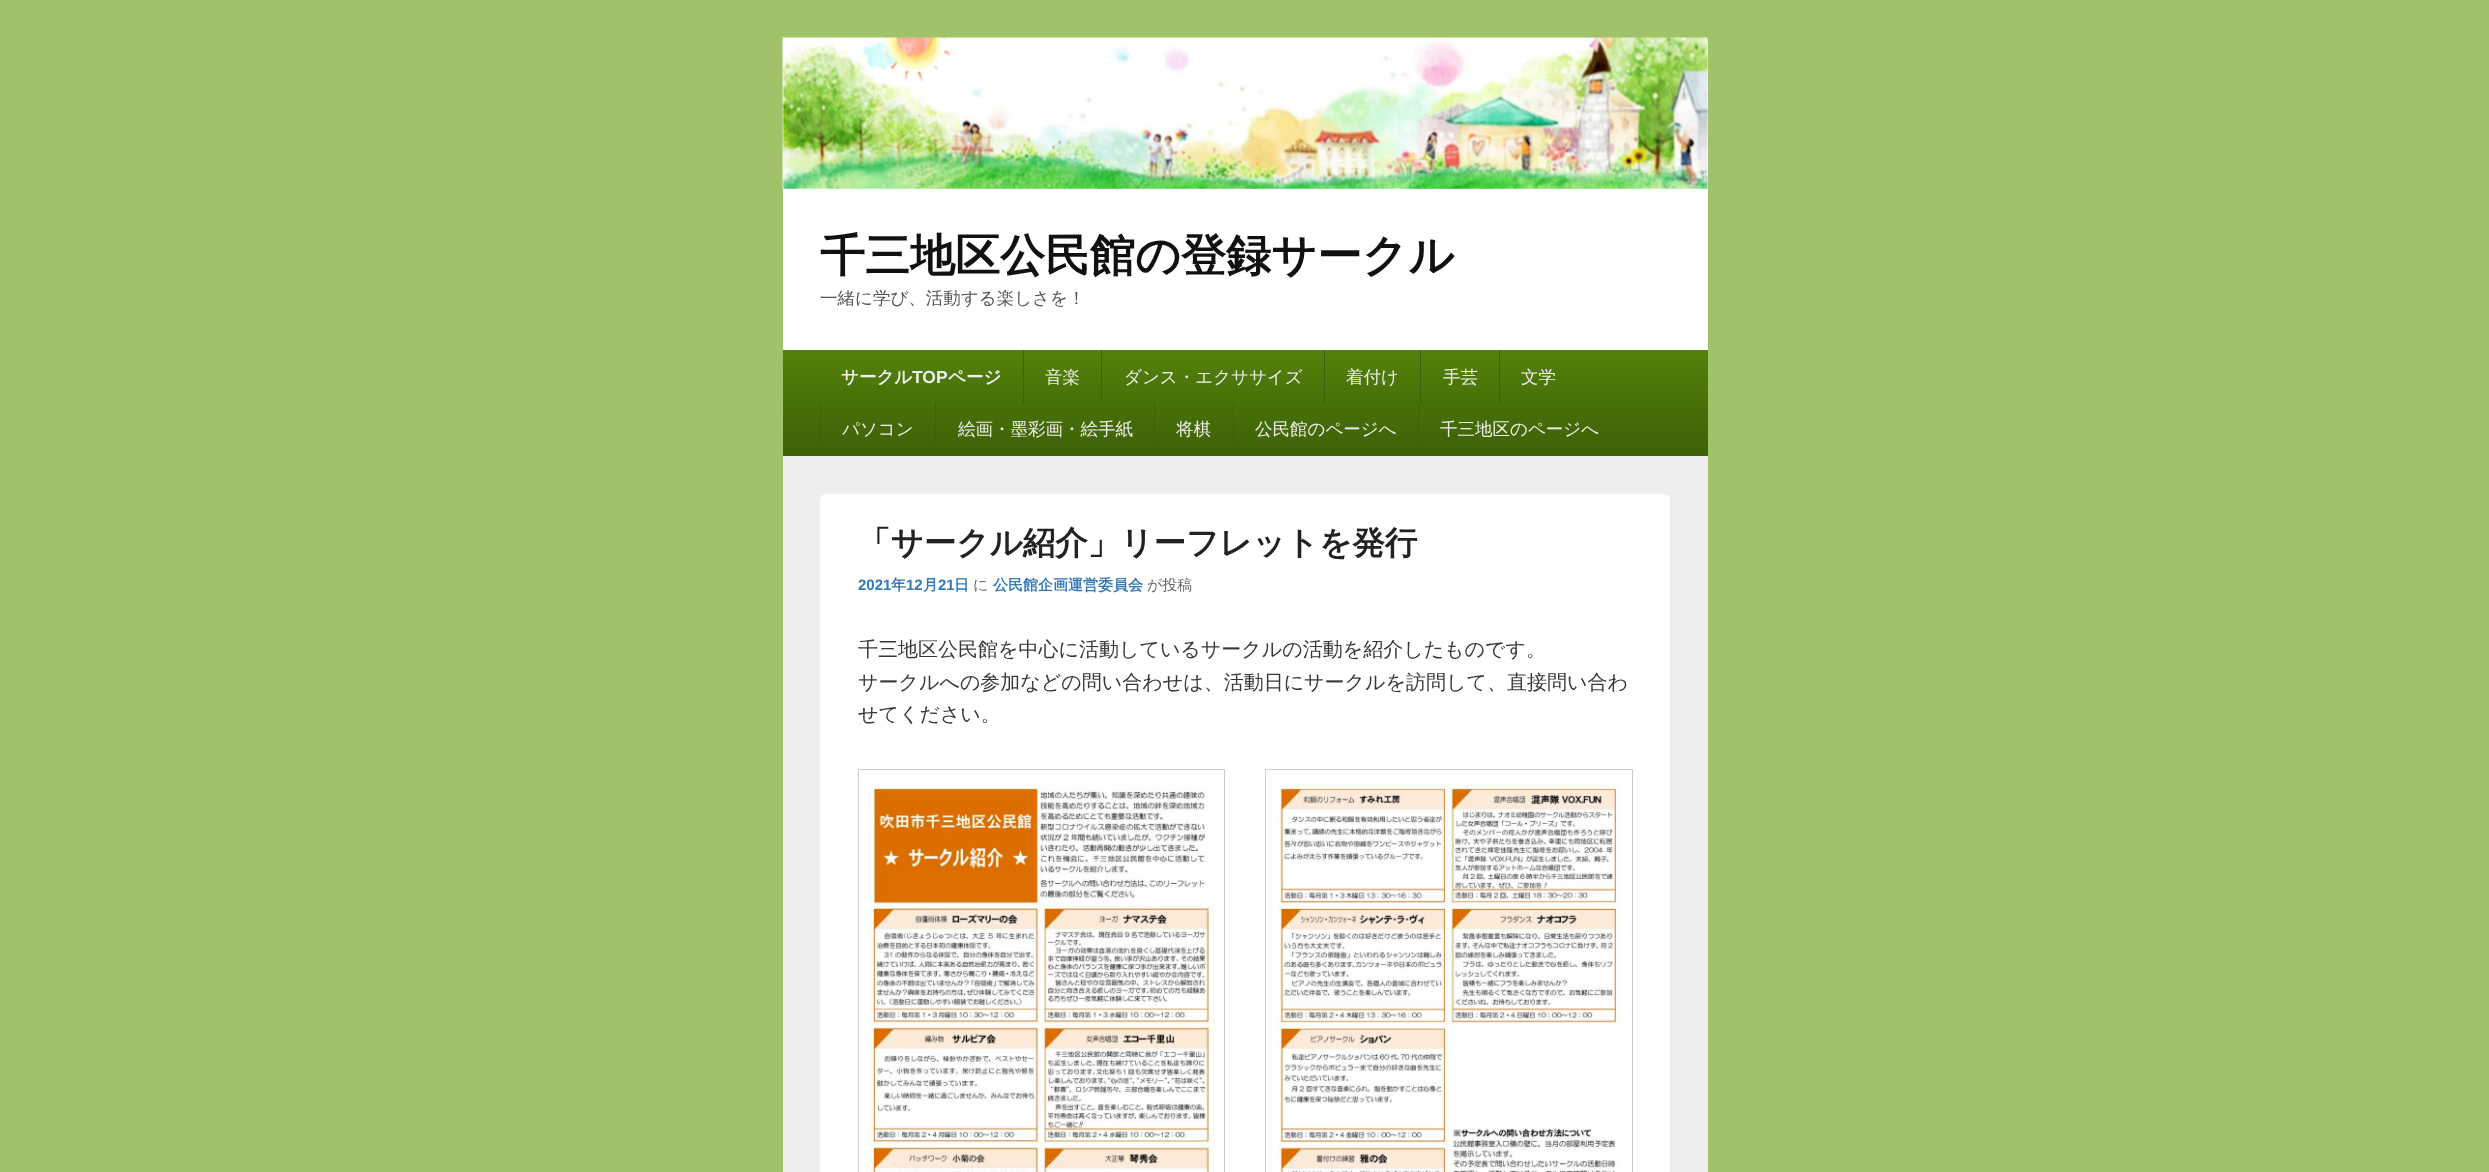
async function draw(canvas) {
  canvas.width = 2489
  canvas.height = 1172
  const ctx = canvas.getContext('2d')
  ctx.miterLimit = 4
  ctx.fontKerning = 'normal'
  async function loadImage(src) {
    const img = new Image()
    img.src = src
    await img.decode()
    return img
  }
  let gradient

  ctx.fillStyle = '#a0c269'
  ctx.fillRect(0, 0, 2489, 1172)
  ctx.fillStyle = '#eee'
  ctx.beginPath()
  ctx.roundRect(783, 38, 925, 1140, 6)
  ctx.fill()
  ctx.fillStyle = '#fff'
  ctx.beginPath()
  ctx.roundRect(783, 38, 925, 418, [6, 6, 0, 0])
  ctx.fill()
  ctx.drawImage(await loadImage('image0.png'), 782, 37, 926, 152)
  ctx.font = 'bold 45px WenQuanYi Zen Hei'
  ctx.fillStyle = '#111'
  ctx.fillText('千三地区公民館の登録サークル', 820, 271)
  ctx.font = '500 17.5px WenQuanYi Zen Hei'
  ctx.fillStyle = '#555'
  ctx.fillText('一緒に学び、活動する楽しさを！', 820, 304)
  gradient = ctx.createLinearGradient(1245, 350, 1245, 455)
  gradient.addColorStop(0, '#53810a')
  gradient.addColorStop(1, '#3e6107')
  ctx.fillStyle = gradient
  ctx.fillRect(783, 350, 925, 105)
  ctx.fillStyle = '#3e6107'
  ctx.fillRect(783, 455, 925, 1)
  ctx.font = 'bold 17.5px WenQuanYi Zen Hei'
  ctx.fillStyle = '#eee'
  ctx.fillText('サークル', 841, 383)
  ctx.font = 'bold 17.5px Liberation Sans'
  ctx.fillText('TOP', 912, 383)
  ctx.font = 'bold 17.5px WenQuanYi Zen Hei'
  ctx.fillText('ページ', 948, 383)
  ctx.fillStyle = '#3e6107'
  ctx.fillRect(1023, 350, 1, 53)
  ctx.font = '500 17.5px WenQuanYi Zen Hei'
  ctx.fillStyle = '#eee'
  ctx.fillText('音楽', 1045, 383)
  ctx.fillStyle = '#3e6107'
  ctx.fillRect(1101, 350, 1, 53)
  ctx.fillStyle = '#eee'
  ctx.fillText('ダンス・エクササイズ', 1124, 383)
  ctx.fillStyle = '#3e6107'
  ctx.fillRect(1324, 350, 1, 53)
  ctx.fillStyle = '#eee'
  ctx.fillText('着付け', 1346, 383)
  ctx.fillStyle = '#3e6107'
  ctx.fillRect(1420, 350, 1, 53)
  ctx.fillStyle = '#eee'
  ctx.fillText('手芸', 1443, 383)
  ctx.fillStyle = '#3e6107'
  ctx.fillRect(1499, 350, 1, 53)
  ctx.fillStyle = '#eee'
  ctx.fillText('文学', 1521, 383)
  ctx.fillStyle = '#3e6107'
  ctx.fillRect(820, 403, 1, 52)
  ctx.fillStyle = '#eee'
  ctx.fillText('パソコン', 842, 435)
  ctx.fillStyle = '#3e6107'
  ctx.fillRect(935, 403, 1, 52)
  ctx.fillStyle = '#eee'
  ctx.fillText('絵画・墨彩画・絵手紙', 958, 435)
  ctx.fillStyle = '#3e6107'
  ctx.fillRect(1154, 403, 1, 52)
  ctx.fillStyle = '#eee'
  ctx.fillText('将棋', 1176, 435)
  ctx.fillStyle = '#3e6107'
  ctx.fillRect(1233, 403, 1, 52)
  ctx.fillStyle = '#eee'
  ctx.fillText('公民館のページへ', 1255, 435)
  ctx.fillStyle = '#3e6107'
  ctx.fillRect(1418, 403, 1, 52)
  ctx.fillStyle = '#eee'
  ctx.fillText('千三地区のページへ', 1440, 435)
  ctx.fillStyle = '#fff'
  ctx.beginPath()
  ctx.roundRect(820, 494, 850, 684, 6)
  ctx.fill()
  ctx.font = 'bold 32.5px WenQuanYi Zen Hei'
  ctx.fillStyle = '#222'
  ctx.fillText('「サークル紹介」リーフレットを発行', 858, 554)
  ctx.font = 'bold 15px Liberation Sans'
  ctx.fillStyle = '#337ab7'
  ctx.fillText('2021', 858, 590)
  ctx.font = 'bold 15px WenQuanYi Zen Hei'
  ctx.fillText('年', 891, 590)
  ctx.font = 'bold 15px Liberation Sans'
  ctx.fillText('12', 906, 590)
  ctx.font = 'bold 15px WenQuanYi Zen Hei'
  ctx.fillText('月', 923, 590)
  ctx.font = 'bold 15px Liberation Sans'
  ctx.fillText('21', 938, 590)
  ctx.font = 'bold 15px WenQuanYi Zen Hei'
  ctx.fillText('日', 954, 590)
  ctx.font = '500 15px WenQuanYi Zen Hei'
  ctx.fillStyle = '#666'
  ctx.fillText('に', 973, 590)
  ctx.font = 'bold 15px WenQuanYi Zen Hei'
  ctx.fillStyle = '#337ab7'
  ctx.fillText('公民館企画運営委員会', 993, 590)
  ctx.font = '500 15px WenQuanYi Zen Hei'
  ctx.fillStyle = '#666'
  ctx.fillText('が投稿', 1147, 590)
  ctx.font = '500 20px WenQuanYi Zen Hei'
  ctx.fillStyle = '#373737'
  ctx.fillText('千三地区公民館を中心に活動しているサークルの活動を紹介したものです。', 858, 656)
  ctx.fillText('サークルへの参加などの問い合わせは、活動日にサークルを訪問して、直接問い合わ', 858, 689)
  ctx.fillText('せてください。', 858, 721)
  ctx.strokeStyle = '#ccc'
  ctx.strokeRect(858.5, 769.5, 366, 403)
  ctx.drawImage(await loadImage('image1.png'), 868, 785, 346, 387)
  ctx.strokeRect(1265.5, 769.5, 367, 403)
  ctx.drawImage(await loadImage('image2.png'), 1274, 785, 348, 387)
}

draw(document.querySelector('canvas'))
